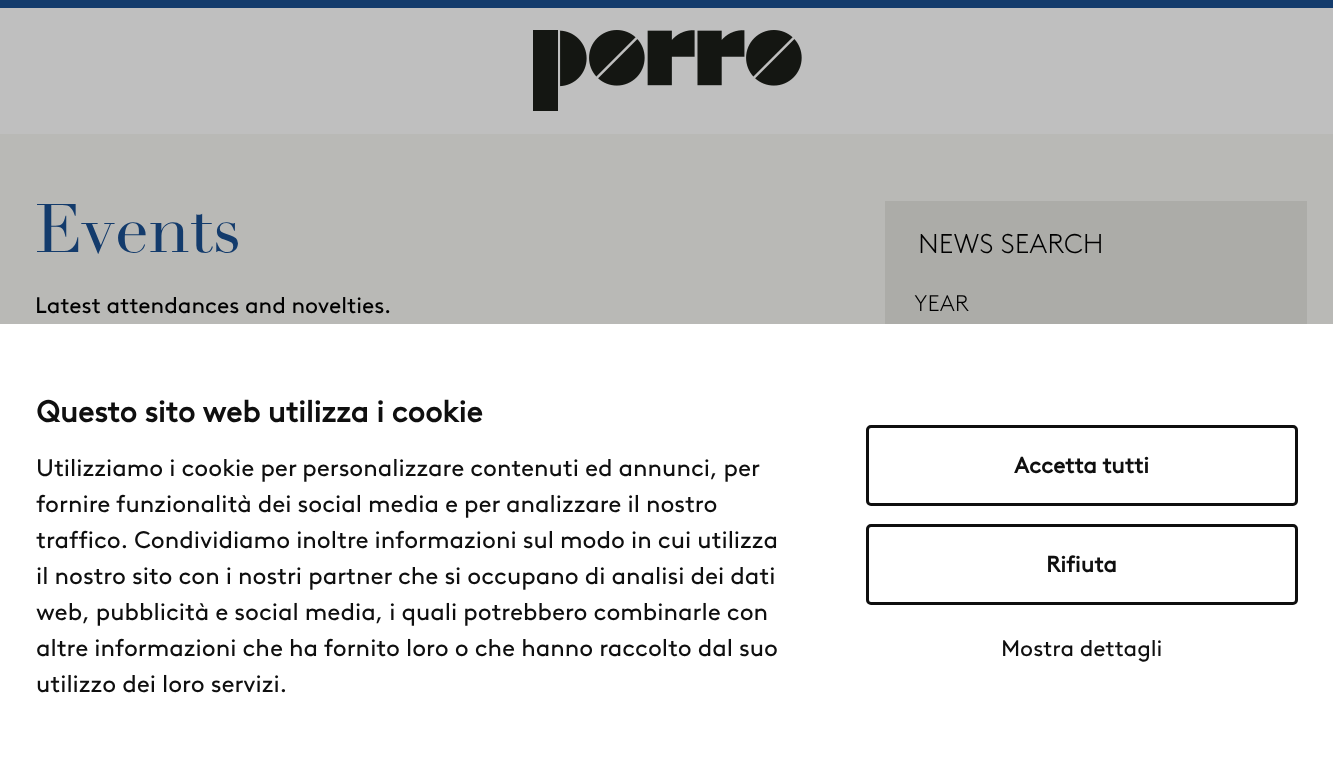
async function draw(canvas) {
  canvas.width = 1333
  canvas.height = 773
  const ctx = canvas.getContext('2d')
  ctx.miterLimit = 4
  ctx.fontKerning = 'normal'
  async function loadImage(src) {
    const img = new Image()
    img.src = src
    await img.decode()
    return img
  }

  ctx.fillStyle = '#bfbfbf'
  ctx.fillRect(0, 0, 1333, 773)
  ctx.fillStyle = '#133b6c'
  ctx.fillRect(0, 0, 1333, 8)
  ctx.drawImage(await loadImage('image0.png'), 533, 30, 269, 81)
  ctx.fillStyle = '#b9b9b6'
  ctx.fillRect(0, 134, 1333, 190)
  ctx.font = '67.5px Didot'
  ctx.fillStyle = '#133b6c'
  ctx.fillText('Events', 35, 252)
  ctx.font = '22.5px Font'
  ctx.fillStyle = '#000'
  ctx.fillText('Latest attendances and novelties.', 35, 313)
  ctx.fillStyle = '#acaca8'
  ctx.fillRect(885, 201, 422, 123)
  ctx.font = '300 27px Font'
  ctx.fillStyle = '#000'
  ctx.fillText('NEWS SEARCH', 918, 253)
  ctx.font = '300 22.5px Font'
  ctx.fillText('YEAR', 914, 311)
  ctx.fillStyle = '#fff'
  ctx.fillRect(0, 324, 1333, 449)
  ctx.font = 'bold 30px Font'
  ctx.fillStyle = '#0f0f0f'
  ctx.fillText('Questo sito web utilizza i cookie', 36, 422)
  ctx.font = '24px Font'
  ctx.fillText('Utilizziamo i cookie per personalizzare contenuti ed annunci, per', 36, 476)
  ctx.fillText('fornire funzionalità dei social media e per analizzare il nostro', 36, 512)
  ctx.fillText('traffico. Condividiamo inoltre informazioni sul modo in cui utilizza', 36, 548)
  ctx.fillText('il nostro sito con i nostri partner che si occupano di analisi dei dati', 36, 584)
  ctx.fillText('web, pubblicità e social media, i quali potrebbero combinarle con', 36, 620)
  ctx.fillText('altre informazioni che ha fornito loro o che hanno raccolto dal suo', 36, 656)
  ctx.fillText('utilizzo dei loro servizi.', 36, 692)
  ctx.beginPath()
  ctx.roundRect(867.5, 426.5, 429, 78, 3.5)
  ctx.strokeStyle = '#0f0f0f'
  ctx.lineWidth = 3
  ctx.stroke()
  ctx.font = 'bold 22.5px Font'
  ctx.fillText('Accetta tutti', 1014, 473)
  ctx.beginPath()
  ctx.roundRect(867.5, 525.5, 429, 78, 3.5)
  ctx.stroke()
  ctx.fillText('Rifiuta', 1046, 572)
  ctx.font = '22.5px Font'
  ctx.fillText('Mostra dettagli', 1001, 656)
}

draw(document.querySelector('canvas'))
